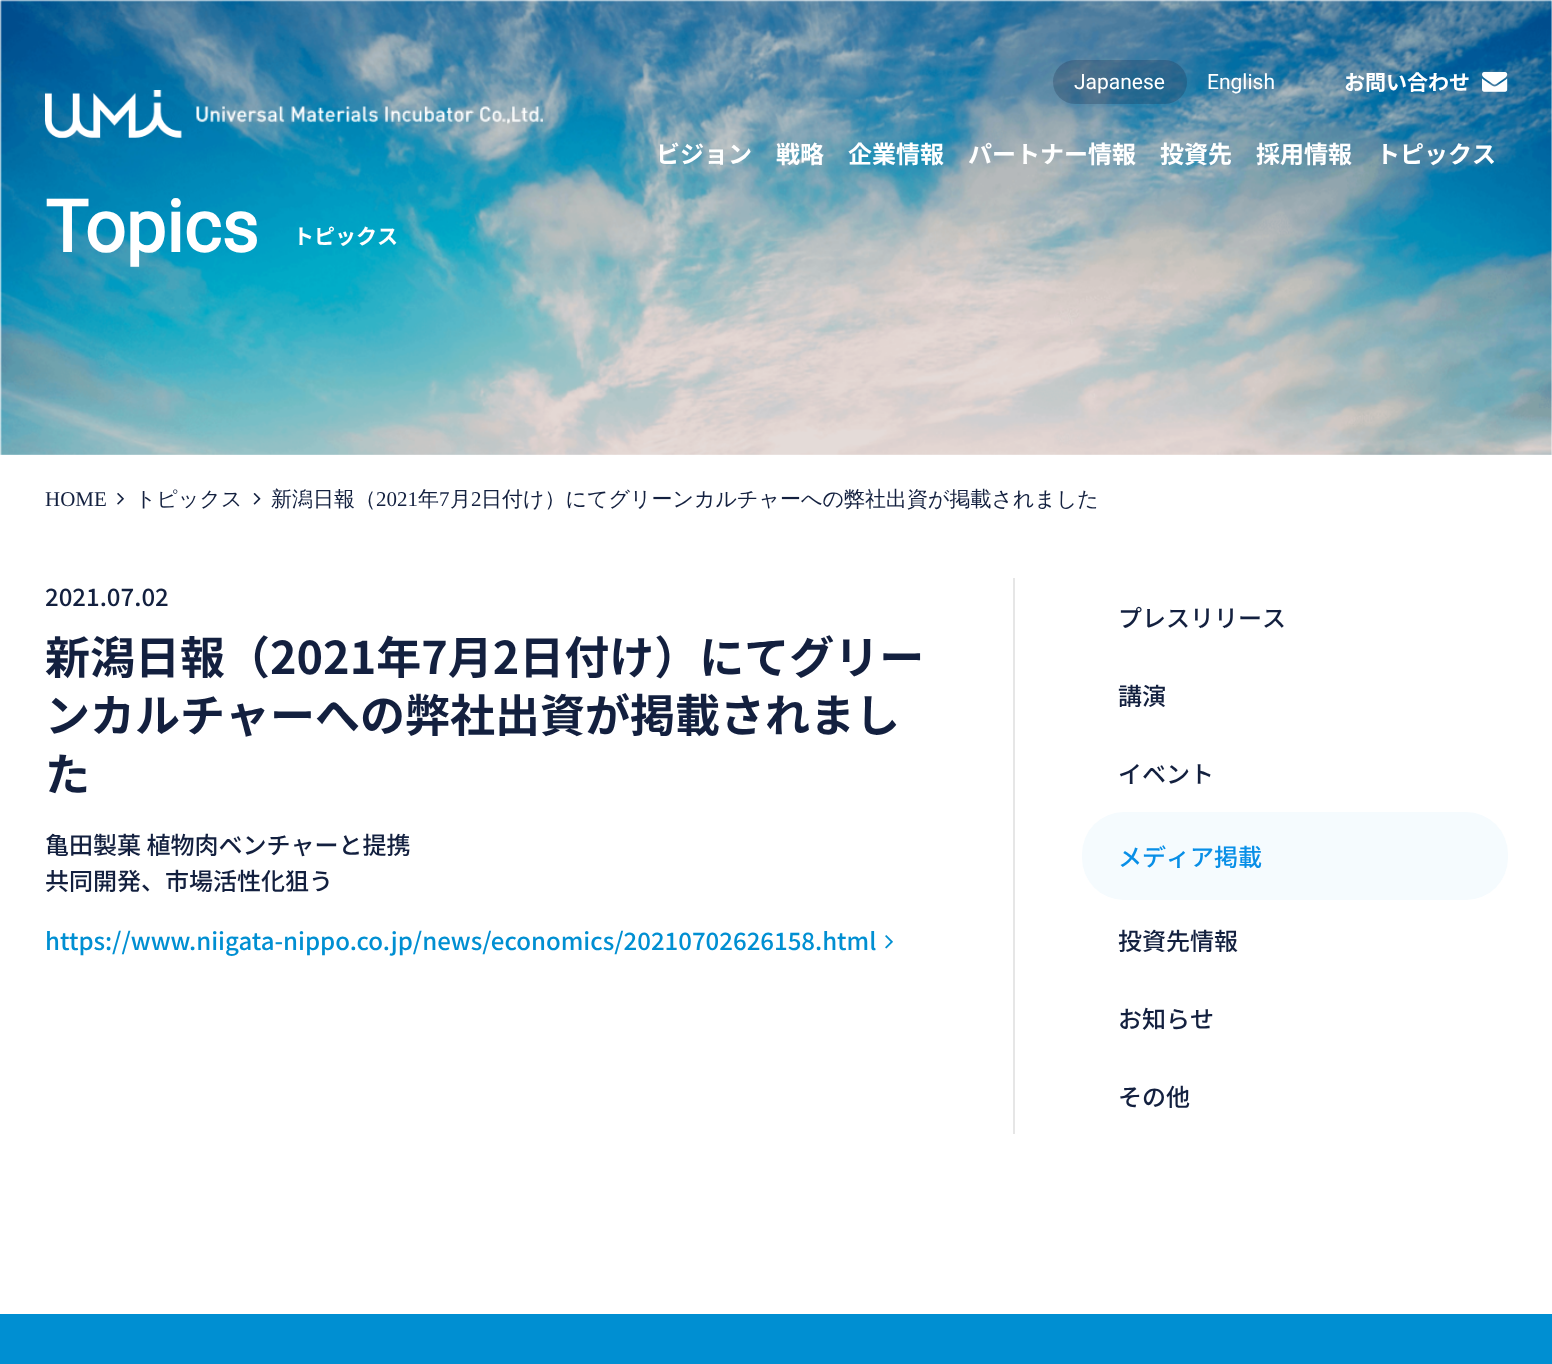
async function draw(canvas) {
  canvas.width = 1552
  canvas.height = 1364
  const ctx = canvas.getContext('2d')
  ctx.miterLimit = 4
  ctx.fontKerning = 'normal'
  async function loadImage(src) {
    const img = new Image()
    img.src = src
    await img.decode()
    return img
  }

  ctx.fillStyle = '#fff'
  ctx.fillRect(0, 0, 1552, 1364)
  ctx.drawImage(await loadImage('image3.png'), 0, 0, 1552, 455)
  ctx.drawImage(await loadImage('image0.png'), 45, 90, 137, 49)
  ctx.drawImage(await loadImage('image1.png'), 196, 106, 347, 19)
  ctx.fillStyle = '#13203f3d'
  ctx.beginPath()
  ctx.roundRect(1053, 60, 134, 44, 22)
  ctx.fill()
  ctx.font = '21px Roboto'
  ctx.fillStyle = '#fff'
  ctx.fillText('Japanese', 1074, 89)
  ctx.fillText('English', 1207, 89)
  ctx.font = 'bold 21px Noto Sans CJK JP'
  ctx.fillText('お問い合わせ', 1344, 90)
  ctx.drawImage(await loadImage('image2.png'), 1482, 72, 26, 20)
  ctx.font = 'bold 24px Noto Sans CJK JP'
  ctx.fillText('ビジョン', 656, 163)
  ctx.fillText('戦略', 776, 163)
  ctx.fillText('企業情報', 848, 163)
  ctx.fillText('パートナー情報', 968, 163)
  ctx.fillText('投資先', 1160, 163)
  ctx.fillText('採用情報', 1256, 163)
  ctx.fillText('トピックス', 1376, 163)
  ctx.font = 'bold 72px Roboto'
  ctx.fillText('Topics', 45, 252)
  ctx.font = 'bold 21px Noto Sans CJK JP'
  ctx.fillText('トピックス', 293, 244)
  ctx.font = '21px Liberation Serif'
  ctx.fillStyle = '#13203f'
  ctx.fillText('HOME', 45, 506)
  ctx.drawImage(await loadImage('image4.png'), 117, 493, 7, 12)
  ctx.font = '500 21px WenQuanYi Zen Hei'
  ctx.fillText('トピックス', 135, 506)
  ctx.drawImage(await loadImage('image5.png'), 253, 493, 8, 12)
  ctx.fillText('新潟日報（', 271, 506)
  ctx.font = '21px Liberation Serif'
  ctx.fillText('2021', 376, 506)
  ctx.font = '500 21px WenQuanYi Zen Hei'
  ctx.fillText('年', 418, 506)
  ctx.font = '21px Liberation Serif'
  ctx.fillText('7', 439, 506)
  ctx.font = '500 21px WenQuanYi Zen Hei'
  ctx.fillText('月', 450, 506)
  ctx.font = '21px Liberation Serif'
  ctx.fillText('2', 471, 506)
  ctx.font = '500 21px WenQuanYi Zen Hei'
  ctx.fillText('日付け）にてグリーンカルチャーへの弊社出資が掲載されました', 481, 506)
  ctx.font = '500 24px Noto Sans CJK JP'
  ctx.fillText('2021.07.02', 45, 606)
  ctx.font = 'bold 45px Noto Sans CJK JP'
  ctx.fillText('新潟日報（2021年7月2日付け）にてグリー', 45, 674)
  ctx.fillText('ンカルチャーへの弊社出資が掲載されまし', 45, 732)
  ctx.fillText('た', 45, 791)
  ctx.font = '500 24px Noto Sans CJK JP'
  ctx.fillText('亀田製菓 植物肉ベンチャーと提携', 45, 854)
  ctx.fillText('共同開発、市場活性化狙う', 45, 890)
  ctx.fillStyle = '#008fd2'
  ctx.fillText('https://www.niigata-nippo.co.jp/news/economics/20210702626158.html', 45, 950)
  ctx.drawImage(await loadImage('image6.png'), 885, 935, 8, 14)
  ctx.fillStyle = '#e6e6e6'
  ctx.fillRect(1013, 578, 2, 556)
  ctx.fillStyle = '#13203f'
  ctx.fillText('プレスリリース', 1118, 627)
  ctx.fillText('講演', 1118, 705)
  ctx.fillText('イベント', 1118, 783)
  ctx.fillStyle = '#f5fbfe'
  ctx.beginPath()
  ctx.roundRect(1082, 812, 426, 88, 42)
  ctx.fill()
  ctx.fillStyle = '#088fe7'
  ctx.fillText('メディア掲載', 1118, 866)
  ctx.fillStyle = '#13203f'
  ctx.fillText('投資先情報', 1118, 950)
  ctx.fillText('お知らせ', 1118, 1028)
  ctx.fillText('その他', 1118, 1106)
  ctx.fillStyle = '#008fd2'
  ctx.fillRect(0, 1314, 1552, 50)
}

draw(document.querySelector('canvas'))
